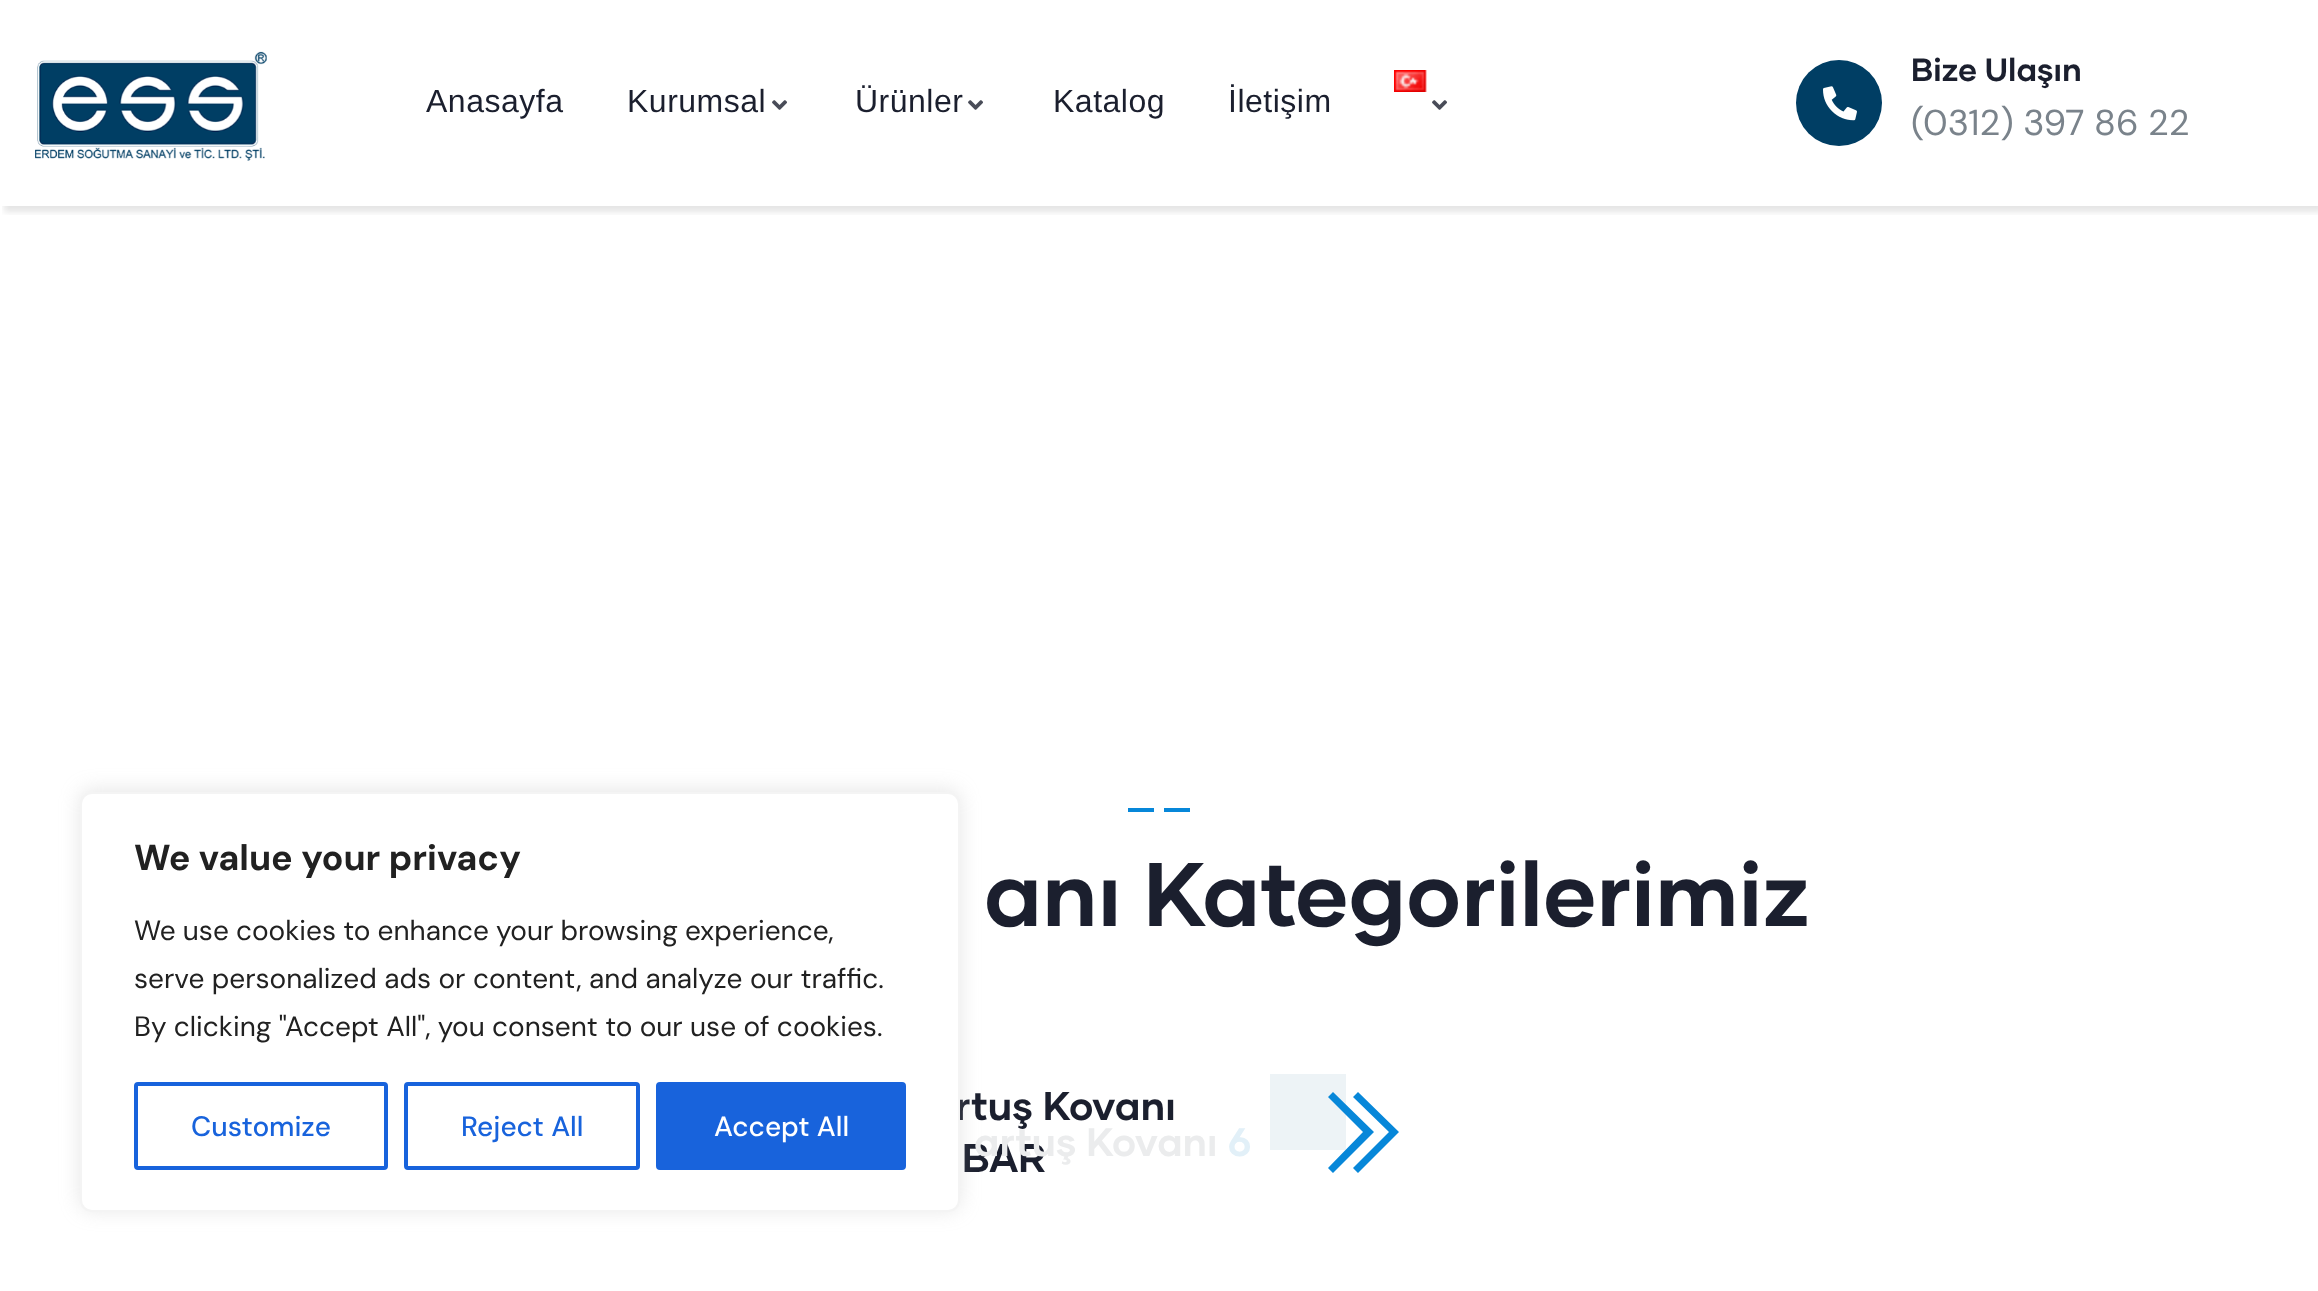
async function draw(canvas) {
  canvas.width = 2318
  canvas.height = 1291
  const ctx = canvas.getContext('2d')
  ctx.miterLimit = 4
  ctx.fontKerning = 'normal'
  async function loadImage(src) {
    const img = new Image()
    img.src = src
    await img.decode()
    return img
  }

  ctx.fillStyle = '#fff'
  ctx.fillRect(0, 0, 2318, 1291)
  ctx.save()
  ctx.beginPath()
  ctx.rect(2, 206, 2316, 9)
  ctx.clip()
  ctx.fillStyle = '#0000001a'
  ctx.filter = 'blur(3px)'
  ctx.beginPath()
  ctx.rect(4, 6, 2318, 206)
  ctx.fill()
  ctx.filter = 'none'
  ctx.restore()
  ctx.drawImage(await loadImage('image0.png'), 35, 51, 232, 110)
  ctx.letterSpacing = '0.5px'
  ctx.font = '32px Liberation Sans'
  ctx.fillStyle = '#1b1f2e'
  ctx.fillText('Anasayfa', 426, 112)
  ctx.fillText('Kurumsal', 627, 112)
  ctx.drawImage(await loadImage('image1.png'), 772, 100, 15, 10)
  ctx.fillText('Ürünler', 855, 112)
  ctx.drawImage(await loadImage('image1.png'), 968, 100, 15, 10)
  ctx.fillText('Katalog', 1053, 112)
  ctx.fillText('İletişim', 1228, 112)
  ctx.drawImage(await loadImage('image2.png'), 1394, 70, 33, 22)
  ctx.drawImage(await loadImage('image1.png'), 1432, 100, 15, 10)
  ctx.fillStyle = '#003e64'
  ctx.beginPath()
  ctx.arc(1839, 103, 43, 0, 2 * Math.PI)
  ctx.fill()
  ctx.drawImage(await loadImage('image3.png'), 1823, 86, 34, 35)
  ctx.letterSpacing = '0px'
  ctx.font = 'bold 32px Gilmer'
  ctx.fillStyle = '#1b1f2e'
  ctx.fillText('Bize Ulaşın', 1911, 81)
  ctx.font = '36px DM Sans'
  ctx.fillStyle = '#7a838b'
  ctx.fillText('(0312) 397 86 22', 1911, 135)
  ctx.fillStyle = '#0787d9'
  ctx.fillRect(1128, 808, 26, 4)
  ctx.fillRect(1164, 808, 26, 4)
  ctx.font = 'bold 90px Gilmer'
  ctx.fillStyle = '#1b1f2e'
  ctx.fillText('anı Kategorilerimiz', 984, 926)
  ctx.font = 'bold 40px Gilmer'
  ctx.fillText('rtuş Kovanı', 955, 1120)
  ctx.fillText('BAR', 962, 1172)
  ctx.fillStyle = '#edf3f6'
  ctx.fillRect(1270, 1074, 76, 76)
  ctx.fillStyle = '#0787d9'
  ctx.beginPath()
  ctx.moveTo(1333, 1092)
  ctx.lineTo(1328, 1097)
  ctx.lineTo(1363, 1132)
  ctx.lineTo(1328, 1168)
  ctx.lineTo(1333, 1173)
  ctx.lineTo(1374, 1132)
  ctx.closePath()
  ctx.moveTo(1358, 1092)
  ctx.lineTo(1353, 1097)
  ctx.lineTo(1389, 1132)
  ctx.lineTo(1353, 1168)
  ctx.lineTo(1358, 1173)
  ctx.lineTo(1399, 1132)
  ctx.closePath()
  ctx.fill()
  ctx.font = 'bold 39.5px Gilmer'
  ctx.fillStyle = '#ebeced'
  ctx.fillText('artuş Kovanı', 974, 1156)
  ctx.fillStyle = '#e2f0f8'
  ctx.fillText('6', 1228, 1156)
  ctx.fillStyle = '#acabab4d'
  ctx.filter = 'blur(10px)'
  ctx.beginPath()
  ctx.roundRect(80, 790, 880, 420, 12)
  ctx.fill()
  ctx.filter = 'none'
  ctx.fillStyle = '#fff'
  ctx.beginPath()
  ctx.roundRect(81, 793, 878, 418, 11)
  ctx.fill()
  ctx.strokeStyle = '#f4f4f4'
  ctx.lineWidth = 2
  ctx.stroke()
  ctx.font = 'bold 36px DM Sans'
  ctx.fillStyle = '#212121'
  ctx.fillText('We value your privacy', 134, 870)
  ctx.wordSpacing = '-0.25px'
  ctx.font = '28px DM Sans'
  ctx.fillText('We use cookies to enhance your browsing experience,', 134, 940)
  ctx.wordSpacing = '0px'
  ctx.fillText('serve personalized ads or content, and analyze our traffic.', 134, 988)
  ctx.wordSpacing = '-0.1px'
  ctx.fillText('By clicking "Accept All", you consent to our use of cookies.', 134, 1036)
  ctx.beginPath()
  ctx.roundRect(136, 1084, 250, 84, 2)
  ctx.strokeStyle = '#1863dc'
  ctx.lineWidth = 4
  ctx.stroke()
  ctx.wordSpacing = '0px'
  ctx.font = '500 28px DM Sans'
  ctx.fillStyle = '#1863dc'
  ctx.fillText('Customize', 191, 1136)
  ctx.beginPath()
  ctx.roundRect(406, 1084, 232, 84, 2)
  ctx.stroke()
  ctx.fillText('Reject All', 461, 1136)
  ctx.beginPath()
  ctx.roundRect(658, 1084, 246, 84, 2)
  ctx.fill()
  ctx.stroke()
  ctx.fillStyle = '#fff'
  ctx.fillText('Accept All', 714, 1136)
}

draw(document.querySelector('canvas'))
